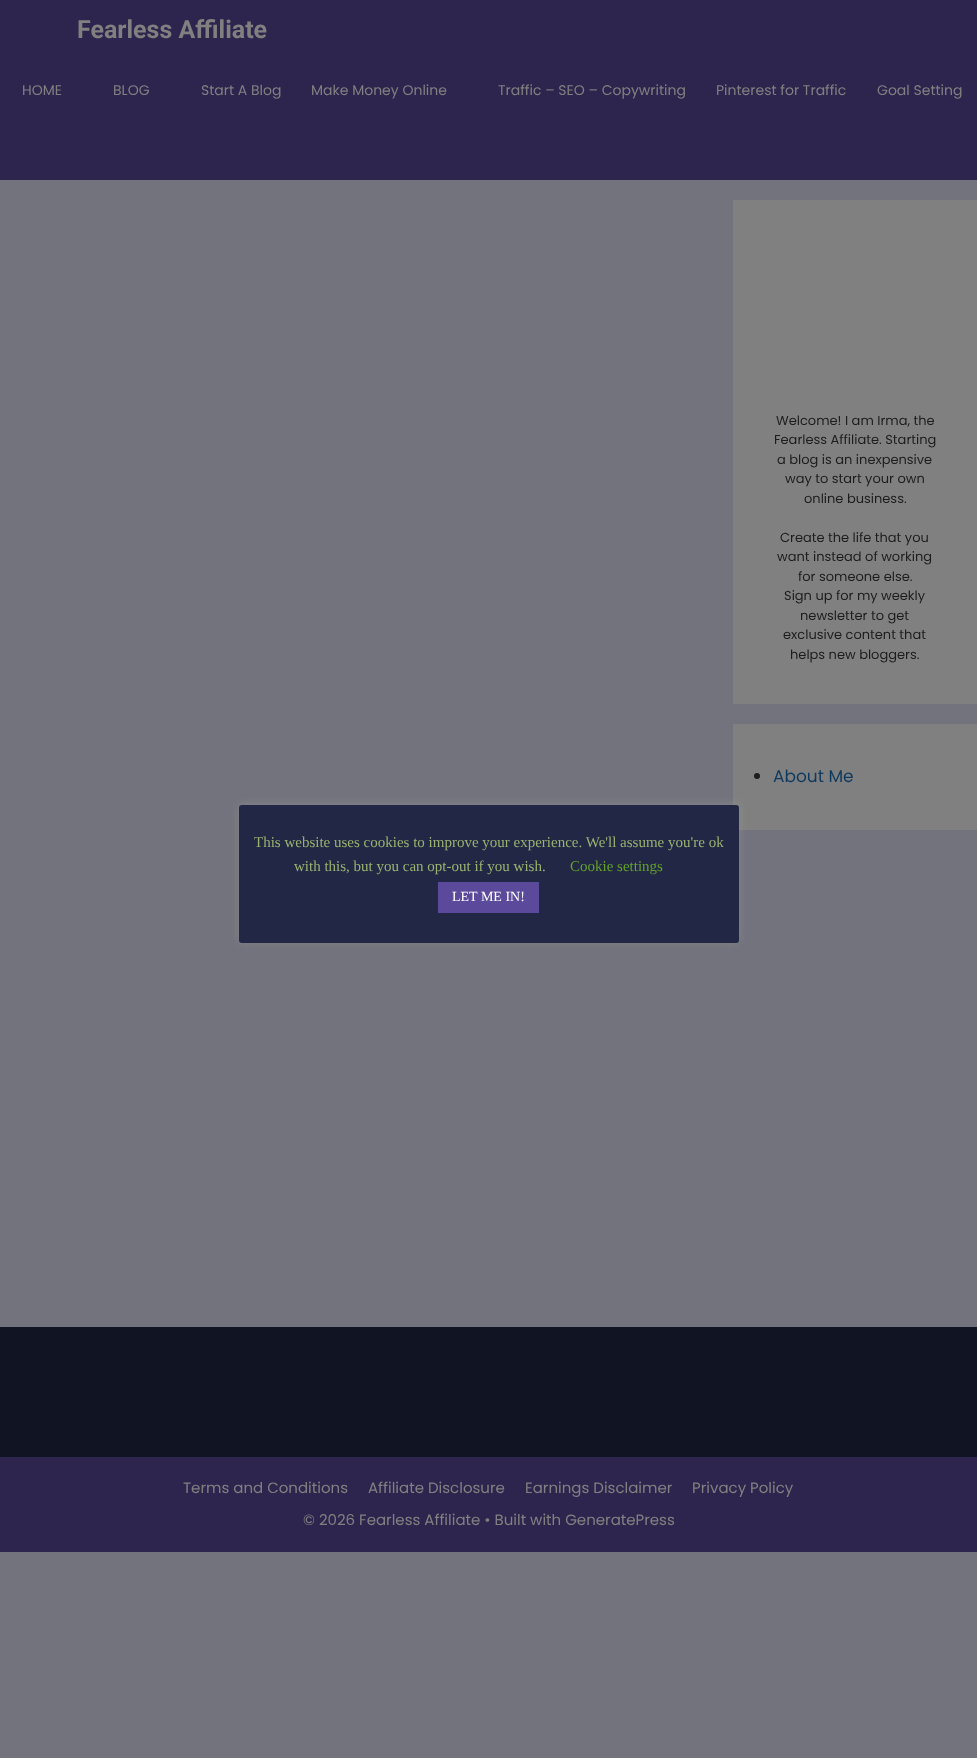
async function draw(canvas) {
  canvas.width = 977
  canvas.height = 1758
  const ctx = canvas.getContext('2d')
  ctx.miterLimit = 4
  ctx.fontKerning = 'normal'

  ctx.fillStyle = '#73737d'
  ctx.fillRect(0, 0, 977, 1758)
  ctx.fillStyle = '#2e254e'
  ctx.fillRect(0, 0, 977, 180)
  ctx.font = 'bold 25px Roboto'
  ctx.fillStyle = '#808080'
  ctx.fillText('Fearless Affiliate', 77, 38)
  ctx.font = '14px Poppins'
  ctx.fillText('HOME', 22, 95)
  ctx.fillText('BLOG', 113, 95)
  ctx.fillText('Start A Blog', 201, 95)
  ctx.fillText('Make Money Online', 311, 95)
  ctx.fillText('Traffic – SEO – Copywriting', 498, 95)
  ctx.fillText('Pinterest for Traffic', 716, 95)
  ctx.fillText('Goal Setting', 877, 95)
  ctx.fillRect(733, 200, 244, 504)
  ctx.font = '13px Poppins'
  ctx.fillStyle = '#1d1d1d'
  ctx.fillText('Welcome! I am Irma, the', 776, 425)
  ctx.fillText('Fearless Affiliate. Starting', 774, 444)
  ctx.fillText('a blog is an inexpensive', 777, 464)
  ctx.fillText('way to start your own', 785, 483)
  ctx.fillText('online business.', 804, 503)
  ctx.fillText('Create the life that you', 780, 542)
  ctx.fillText('want instead of working', 777, 561)
  ctx.fillText('for someone else.', 798, 581)
  ctx.fillText('Sign up for my weekly', 784, 600)
  ctx.fillText('newsletter to get', 800, 620)
  ctx.fillText('exclusive content that', 783, 639)
  ctx.fillText('helps new bloggers.', 790, 659)
  ctx.fillStyle = '#808080'
  ctx.fillRect(733, 724, 244, 106)
  ctx.fillStyle = '#1d1d1d'
  ctx.beginPath()
  ctx.arc(757, 776, 3, 0, 2 * Math.PI)
  ctx.fill()
  ctx.font = '17px Poppins'
  ctx.fillStyle = '#0f3a5f'
  ctx.fillText('About Me', 773, 782)
  ctx.fillStyle = '#acabab4d'
  ctx.filter = 'blur(5px)'
  ctx.beginPath()
  ctx.roundRect(239, 804, 500, 138, 3)
  ctx.fill()
  ctx.filter = 'none'
  ctx.fillStyle = '#222745'
  ctx.beginPath()
  ctx.roundRect(239, 805, 500, 138, 3)
  ctx.fill()
  ctx.font = '15px Liberation Serif'
  ctx.fillStyle = '#99b270'
  ctx.fillText('This website uses cookies to improve your experience. We\'ll assume you\'re ok', 254, 847)
  ctx.fillText('with this, but you can opt-out if you wish.', 294, 871)
  ctx.fillStyle = '#62a329'
  ctx.fillText('Cookie settings', 570, 871)
  ctx.fillStyle = '#5b4a9b'
  ctx.fillRect(438, 882, 101, 31)
  ctx.font = '14px Liberation Serif'
  ctx.fillStyle = '#fff'
  ctx.fillText('LET ME IN!', 452, 901)
  ctx.fillStyle = '#111423'
  ctx.fillRect(0, 1327, 977, 130)
  ctx.fillStyle = '#2e254e'
  ctx.fillRect(0, 1457, 977, 95)
  ctx.font = '15px Poppins'
  ctx.fillStyle = '#808080'
  ctx.fillText('Terms and Conditions', 183, 1493)
  ctx.fillText('Affiliate Disclosure', 368, 1493)
  ctx.fillText('Earnings Disclaimer', 525, 1493)
  ctx.fillText('Privacy Policy', 692, 1493)
  ctx.fillText('© 2026 Fearless Affiliate • Built with GeneratePress', 303, 1525)
}

draw(document.querySelector('canvas'))
